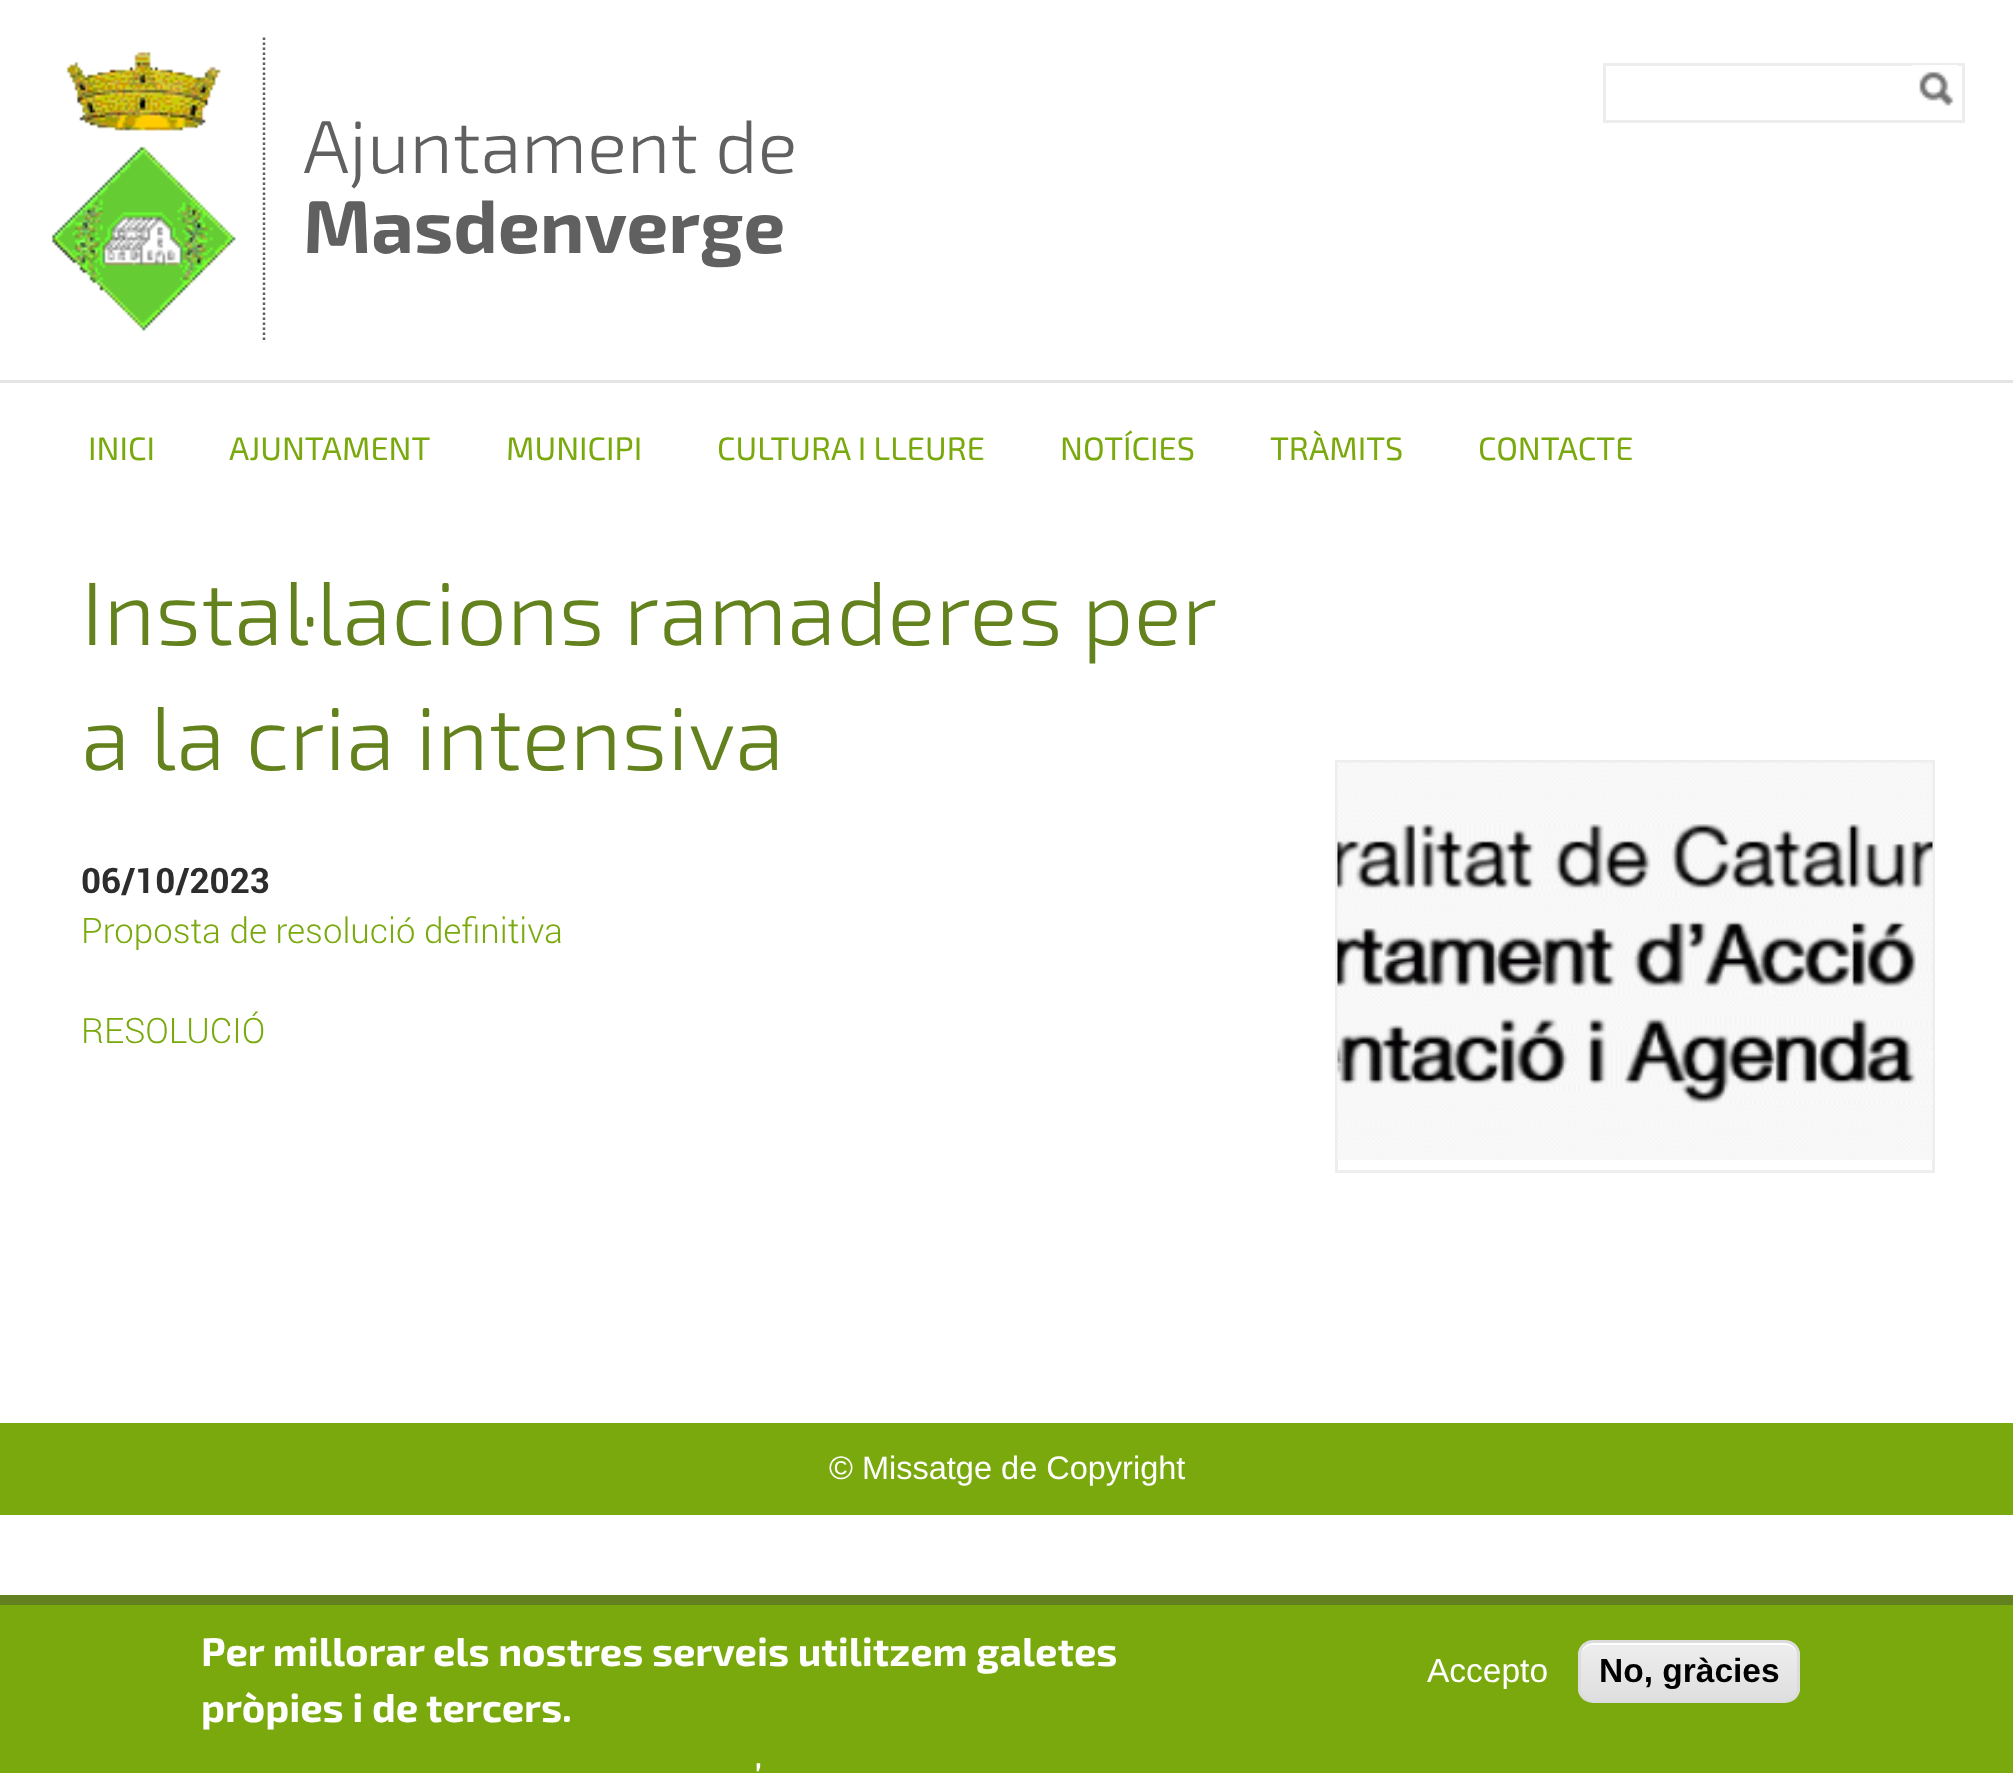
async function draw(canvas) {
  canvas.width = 2013
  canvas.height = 1773
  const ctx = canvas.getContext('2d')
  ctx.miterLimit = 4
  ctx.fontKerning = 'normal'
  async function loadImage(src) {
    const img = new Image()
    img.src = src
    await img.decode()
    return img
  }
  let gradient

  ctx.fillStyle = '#fff'
  ctx.fillRect(0, 0, 2013, 1773)
  ctx.strokeStyle = '#ededed'
  ctx.lineWidth = 3
  ctx.strokeRect(1604.5, 64.5, 359, 57)
  ctx.drawImage(await loadImage('image0.png'), 1912, 65, 46, 41)
  ctx.drawImage(await loadImage('image1.png'), 51, 51, 185, 280)
  ctx.beginPath()
  ctx.moveTo(264, 37.5)
  ctx.lineTo(264, 342.5)
  ctx.strokeStyle = '#606060'
  ctx.lineWidth = 2.5
  ctx.setLineDash([2.5, 2.5])
  ctx.stroke()
  ctx.font = '300 75px "Exo 2"'
  ctx.fillStyle = '#606060'
  ctx.fillText('Ajuntament de', 303, 173)
  ctx.font = 'bold 75px "Exo 2"'
  ctx.fillText('Masdenverge', 303, 253)
  ctx.fillStyle = '#e4e4e4'
  ctx.fillRect(0, 380, 2013, 3)
  ctx.font = '32.5px "Exo 2"'
  ctx.fillStyle = '#7aa90e'
  ctx.fillText('INICI', 88, 460)
  ctx.fillText('AJUNTAMENT', 229, 460)
  ctx.fillText('MUNICIPI', 506, 460)
  ctx.fillText('CULTURA I LLEURE', 717, 460)
  ctx.fillText('NOTÍCIES', 1060, 460)
  ctx.fillText('TRÀMITS', 1270, 460)
  ctx.fillText('CONTACTE', 1478, 460)
  ctx.wordSpacing = '-1px'
  ctx.font = '300 90px "Exo 2"'
  ctx.fillStyle = '#63811c'
  ctx.fillText('Instal·lacions ramaderes per', 81, 645)
  ctx.wordSpacing = '0px'
  ctx.fillText('a la cria intensiva', 81, 770)
  ctx.font = 'bold 35px Roboto'
  ctx.fillStyle = '#2d2d2d'
  ctx.fillText('06/10/2023', 81, 893)
  ctx.font = '300 35px Roboto'
  ctx.fillStyle = '#7aa90e'
  ctx.fillText('Proposta de resolució definitiva', 81, 943)
  ctx.fillText('RESOLUCIÓ', 81, 1043)
  ctx.strokeStyle = '#eee'
  ctx.lineWidth = 3
  ctx.setLineDash([])
  ctx.strokeRect(1336.5, 761.5, 597, 410)
  ctx.drawImage(await loadImage('image2.png'), 1337, 762, 596, 398)
  ctx.fillRect(0, 1423, 2013, 92)
  ctx.font = '32.5px Liberation Sans'
  ctx.fillStyle = '#fff'
  ctx.fillText('© Missatge de Copyright', 829, 1479)
  ctx.fillStyle = '#7aa90e'
  ctx.fillRect(0, 1605, 2013, 168)
  ctx.fillStyle = '#63811e'
  ctx.fillRect(0, 1595, 2013, 10)
  ctx.font = 'bold 40px "Exo 2"'
  ctx.fillStyle = '#fff'
  ctx.fillText('Per millorar els nostres serveis utilitzem galetes', 201, 1666)
  ctx.fillText('pròpies i de tercers.', 201, 1722)
  ctx.font = 'bold 30px Roboto'
  ctx.fillText('\'', 756, 1786)
  ctx.font = '33.5px Liberation Sans'
  ctx.fillText('Accepto', 1427, 1682)
  ctx.save()
  ctx.beginPath()
  ctx.roundRect(1578, 1640, 222, 63, 15)
  ctx.clip()
  gradient = ctx.createLinearGradient(1689, 1643, 1689, 1700)
  gradient.addColorStop(0.05, '#ededed')
  gradient.addColorStop(1, '#dfdfdf')
  ctx.fillStyle = gradient
  ctx.fillRect(1578, 1643, 222, 57)
  ctx.restore()
  ctx.beginPath()
  ctx.moveTo(1592, 1645)
  ctx.lineTo(1785, 1645)
  ctx.bezierCurveTo(1792, 1645, 1798, 1651, 1798, 1658)
  ctx.lineTo(1798, 1656)
  ctx.bezierCurveTo(1798, 1649, 1792, 1643, 1785, 1643)
  ctx.lineTo(1593, 1643)
  ctx.bezierCurveTo(1586, 1643, 1580, 1649, 1580, 1656)
  ctx.lineTo(1580, 1658)
  ctx.bezierCurveTo(1580, 1651, 1586, 1645, 1592, 1645)
  ctx.closePath()
  ctx.fill()
  ctx.beginPath()
  ctx.roundRect(1579.5, 1641.5, 219, 60, 13.5)
  ctx.strokeStyle = '#dcdcdc'
  ctx.stroke()
  ctx.font = 'bold 33.5px Liberation Sans'
  ctx.fillStyle = '#000'
  ctx.fillText('No, gràcies', 1599, 1682)
}

draw(document.querySelector('canvas'))
